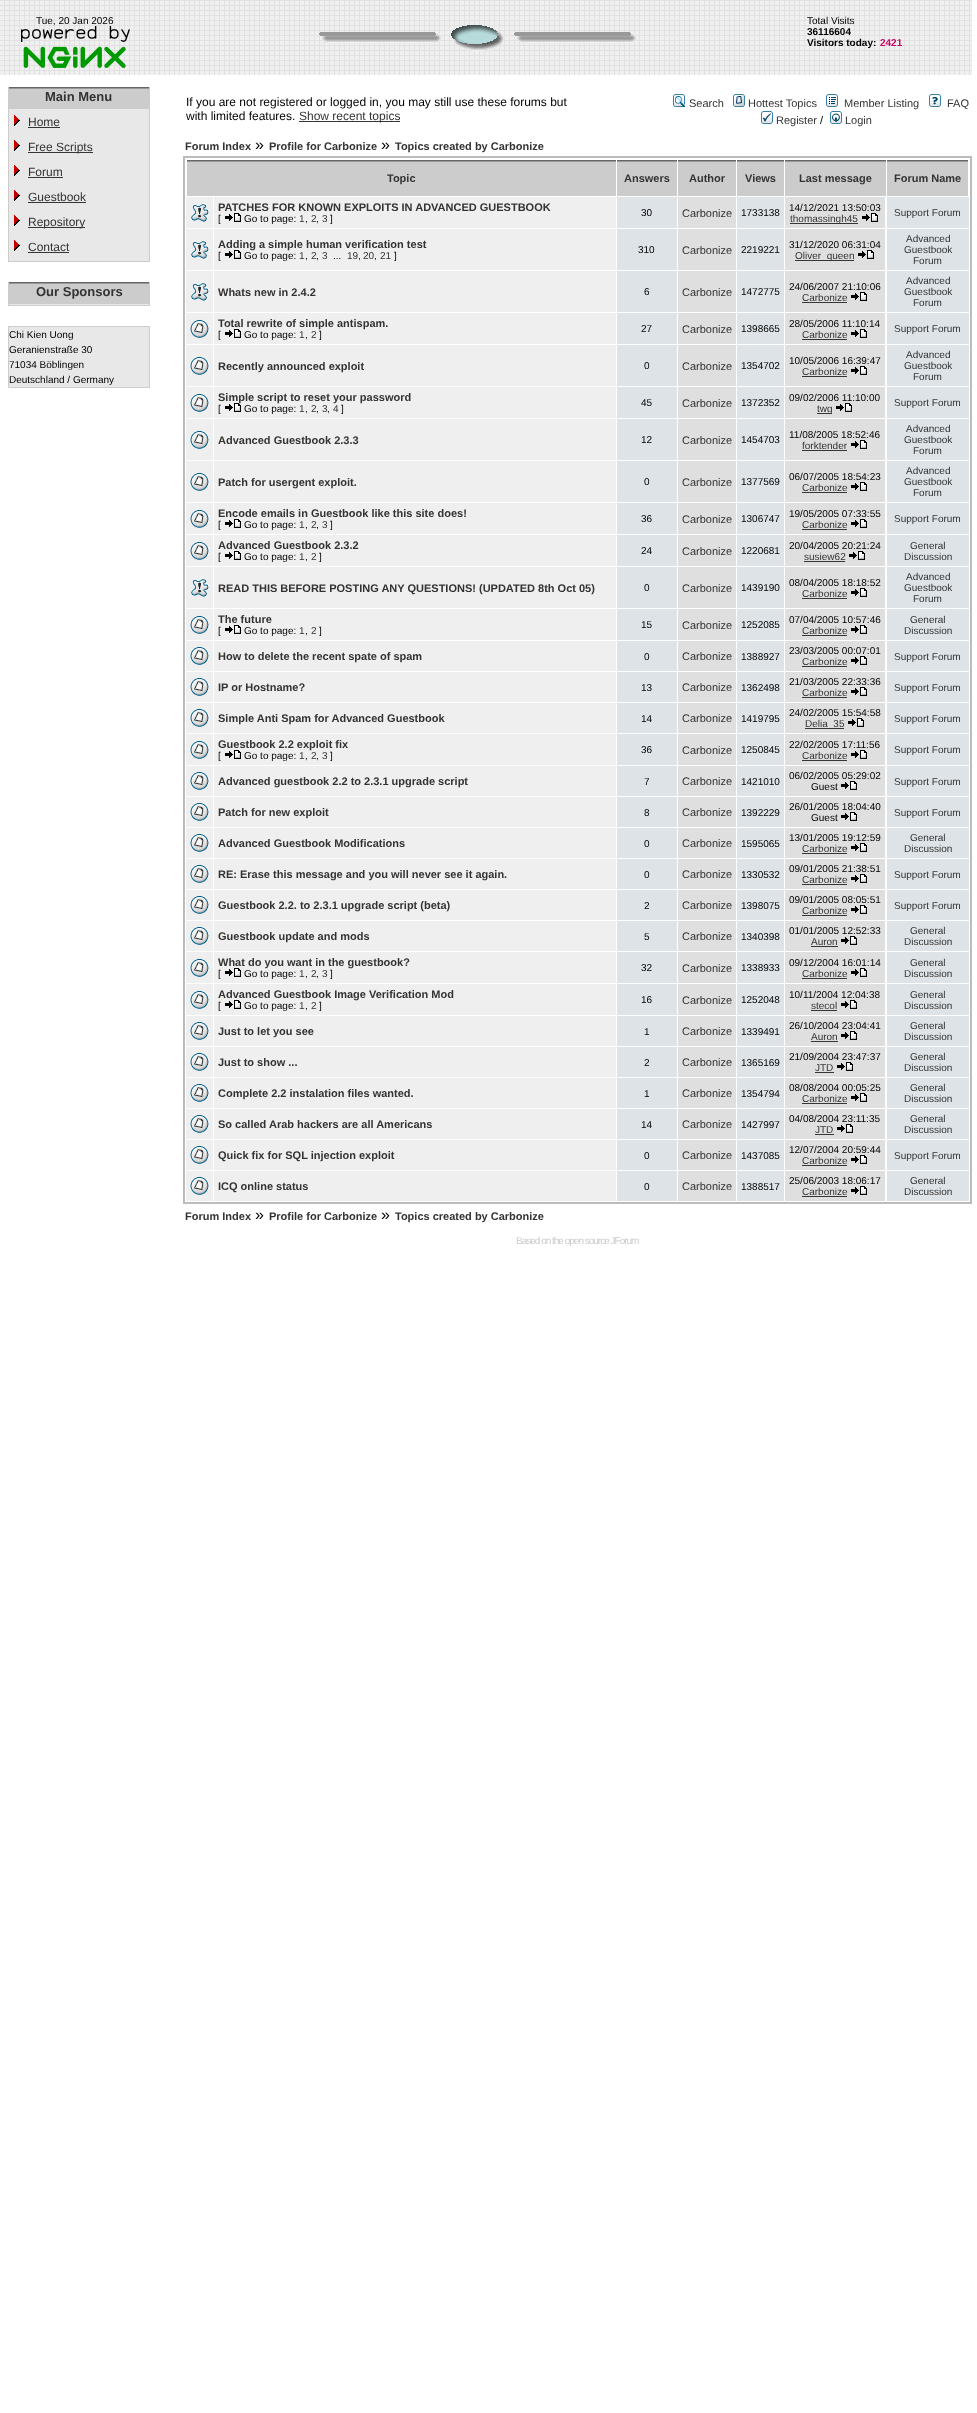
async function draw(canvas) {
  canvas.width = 977
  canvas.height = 2413
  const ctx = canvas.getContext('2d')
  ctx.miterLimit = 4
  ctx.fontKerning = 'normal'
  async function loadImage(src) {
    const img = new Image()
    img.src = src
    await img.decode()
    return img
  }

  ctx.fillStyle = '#fff'
  ctx.fillRect(0, 0, 977, 2413)
  ctx.drawImage(await loadImage('image0.png'), 0, 0, 972, 75)
  ctx.font = '10px Liberation Sans'
  ctx.fillStyle = '#000'
  ctx.fillText('Tue, 20 Jan 2026', 36, 24)
  ctx.drawImage(await loadImage('image1.png'), 21, 26, 109, 42)
  ctx.fillText('Total Visits', 807, 24)
  ctx.font = 'bold 10px Liberation Sans'
  ctx.fillText('36116604', 807, 35)
  ctx.fillText('Visitors today:', 807, 46)
  ctx.fillStyle = '#c06'
  ctx.fillText('2421', 880, 46)
  ctx.drawImage(await loadImage('image2.png'), 319, 25, 317, 26)
  ctx.fillStyle = '#e8e8e8'
  ctx.fillRect(9, 109, 140, 152)
  ctx.fillStyle = '#ccc'
  ctx.fillRect(149, 87, 1, 175)
  ctx.fillRect(8, 261, 142, 1)
  ctx.fillRect(8, 87, 1, 175)
  ctx.drawImage(await loadImage('image3.png'), 9, 87, 140, 22)
  ctx.font = 'bold 13px Liberation Sans'
  ctx.fillStyle = '#333'
  ctx.fillText('Main Menu', 45, 101)
  ctx.drawImage(await loadImage('image4.png'), 14, 115, 6, 11)
  ctx.font = '12px Liberation Sans'
  ctx.fillText('Home', 28, 126)
  ctx.fillStyle = '#363636'
  ctx.fillRect(28, 127, 32, 1)
  ctx.drawImage(await loadImage('image4.png'), 14, 140, 6, 11)
  ctx.fillRect(28, 152, 65, 1)
  ctx.fillStyle = '#333'
  ctx.fillText('Free Scripts', 28, 151)
  ctx.drawImage(await loadImage('image4.png'), 14, 165, 6, 11)
  ctx.fillText('Forum', 28, 176)
  ctx.fillStyle = '#363636'
  ctx.fillRect(28, 177, 35, 1)
  ctx.drawImage(await loadImage('image4.png'), 14, 190, 6, 11)
  ctx.fillStyle = '#333'
  ctx.fillText('Guestbook', 28, 201)
  ctx.fillStyle = '#363636'
  ctx.fillRect(28, 202, 58, 1)
  ctx.drawImage(await loadImage('image4.png'), 14, 215, 6, 11)
  ctx.fillRect(28, 227, 57, 1)
  ctx.fillStyle = '#333'
  ctx.fillText('Repository', 28, 226)
  ctx.drawImage(await loadImage('image4.png'), 14, 240, 6, 11)
  ctx.fillText('Contact', 28, 251)
  ctx.fillStyle = '#363636'
  ctx.fillRect(28, 252, 41, 1)
  ctx.fillStyle = '#e8e8e8'
  ctx.fillRect(9, 304, 140, 1)
  ctx.fillStyle = '#ccc'
  ctx.fillRect(149, 282, 1, 24)
  ctx.fillRect(8, 305, 142, 1)
  ctx.fillRect(8, 282, 1, 24)
  ctx.drawImage(await loadImage('image3.png'), 9, 282, 140, 22)
  ctx.font = 'bold 13px Liberation Sans'
  ctx.fillStyle = '#333'
  ctx.fillText('Our Sponsors', 36, 296)
  ctx.fillStyle = '#e8e8e8'
  ctx.beginPath()
  ctx.rect(8.5, 326.5, 141, 61)
  ctx.fill()
  ctx.strokeStyle = '#ccc'
  ctx.stroke()
  ctx.font = '10px Liberation Sans'
  ctx.fillStyle = '#000'
  ctx.fillText('Chi Kien Uong', 9, 338)
  ctx.fillText('Geranienstraße 30', 9, 353)
  ctx.fillText('71034 Böblingen', 9, 368)
  ctx.fillText('Deutschland / Germany', 9, 383)
  ctx.font = '12px Liberation Sans'
  ctx.fillText('If you are not registered or logged in, you may still use these forums but', 186, 106)
  ctx.fillText('with limited features.', 186, 120)
  ctx.fillStyle = '#363636'
  ctx.fillRect(299, 121, 101, 1)
  ctx.fillStyle = '#333'
  ctx.fillText('Show recent topics', 299, 120)
  ctx.drawImage(await loadImage('image5.png'), 673, 94, 12, 13)
  ctx.font = '11px Liberation Sans'
  ctx.fillText('Search', 689, 107)
  ctx.drawImage(await loadImage('image6.png'), 733, 94, 12, 13)
  ctx.fillText('Hottest Topics', 748, 107)
  ctx.drawImage(await loadImage('image7.png'), 826, 94, 12, 13)
  ctx.fillText('Member Listing', 844, 107)
  ctx.drawImage(await loadImage('image8.png'), 929, 94, 12, 13)
  ctx.fillText('FAQ', 947, 107)
  ctx.drawImage(await loadImage('image9.png'), 761, 111, 12, 13)
  ctx.fillText('Register', 776, 124)
  ctx.fillStyle = '#000'
  ctx.fillText('/', 820, 124)
  ctx.drawImage(await loadImage('image10.png'), 830, 111, 12, 13)
  ctx.fillStyle = '#333'
  ctx.fillText('Login', 845, 124)
  ctx.font = 'bold 11px Liberation Sans'
  ctx.fillText('Forum Index', 185, 150)
  ctx.font = '16px Liberation Sans'
  ctx.fillStyle = '#000'
  ctx.fillText('»', 255, 150)
  ctx.font = 'bold 11px Liberation Sans'
  ctx.fillStyle = '#333'
  ctx.fillText('Profile for Carbonize', 269, 150)
  ctx.font = '16px Liberation Sans'
  ctx.fillStyle = '#000'
  ctx.fillText('»', 381, 150)
  ctx.font = 'bold 11px Liberation Sans'
  ctx.fillStyle = '#333'
  ctx.fillText('Topics created by Carbonize', 395, 150)
  ctx.strokeStyle = '#bcbcbc'
  ctx.lineWidth = 2
  ctx.strokeRect(184, 157, 787, 1046)
  ctx.drawImage(await loadImage('image11.png'), 187, 160, 429, 36)
  ctx.fillText('Topic', 387, 182)
  ctx.drawImage(await loadImage('image12.png'), 617, 160, 60, 36)
  ctx.fillText('Answers', 624, 182)
  ctx.drawImage(await loadImage('image13.png'), 678, 160, 58, 36)
  ctx.fillText('Author', 689, 182)
  ctx.drawImage(await loadImage('image14.png'), 737, 160, 47, 36)
  ctx.fillText('Views', 745, 182)
  ctx.drawImage(await loadImage('image15.png'), 785, 160, 101, 36)
  ctx.fillText('Last message', 799, 182)
  ctx.drawImage(await loadImage('image16.png'), 887, 160, 81, 36)
  ctx.fillText('Forum Name', 894, 182)
  ctx.fillStyle = '#efefef'
  ctx.fillRect(186, 197, 27, 31)
  ctx.drawImage(await loadImage('image17.png'), 191, 204, 18, 18)
  ctx.fillRect(214, 197, 402, 31)
  ctx.fillStyle = '#333'
  ctx.fillText('PATCHES FOR KNOWN EXPLOITS IN ADVANCED GUESTBOOK', 218, 211)
  ctx.font = '10px Liberation Sans'
  ctx.fillStyle = '#000'
  ctx.fillText('[', 218, 222)
  ctx.drawImage(await loadImage('image18.png'), 225, 213, 16, 9)
  ctx.fillText('Go to page:', 244, 222)
  ctx.fillStyle = '#333'
  ctx.fillText('1', 299, 222)
  ctx.fillStyle = '#000'
  ctx.fillText(',', 305, 222)
  ctx.fillStyle = '#333'
  ctx.fillText('2', 311, 222)
  ctx.fillStyle = '#000'
  ctx.fillText(',', 316, 222)
  ctx.fillStyle = '#333'
  ctx.fillText('3', 322, 222)
  ctx.fillStyle = '#000'
  ctx.fillText(']', 330, 222)
  ctx.fillStyle = '#dee3e7'
  ctx.fillRect(617, 197, 60, 31)
  ctx.fillStyle = '#000'
  ctx.fillText('30', 641, 216)
  ctx.fillStyle = '#dfdfdf'
  ctx.fillRect(678, 197, 58, 31)
  ctx.font = '11px Liberation Sans'
  ctx.fillStyle = '#333'
  ctx.fillText('Carbonize', 682, 217)
  ctx.fillStyle = '#dee3e7'
  ctx.fillRect(737, 197, 47, 31)
  ctx.font = '10px Liberation Sans'
  ctx.fillStyle = '#000'
  ctx.fillText('1733138', 741, 216)
  ctx.fillStyle = '#dfdfdf'
  ctx.fillRect(785, 197, 100, 31)
  ctx.fillStyle = '#000'
  ctx.fillText('14/12/2021 13:50:03', 789, 211)
  ctx.fillStyle = '#363636'
  ctx.fillRect(790, 223, 68, 1)
  ctx.fillStyle = '#333'
  ctx.fillText('thomassingh45', 790, 222)
  ctx.drawImage(await loadImage('image19.png'), 862, 213, 16, 9)
  ctx.fillStyle = '#dee3e7'
  ctx.fillRect(887, 197, 82, 31)
  ctx.fillStyle = '#333'
  ctx.fillText('Support Forum', 894, 216)
  ctx.fillStyle = '#efefef'
  ctx.fillRect(186, 229, 27, 41)
  ctx.drawImage(await loadImage('image17.png'), 191, 241, 18, 18)
  ctx.fillRect(214, 229, 402, 41)
  ctx.font = 'bold 11px Liberation Sans'
  ctx.fillStyle = '#333'
  ctx.fillText('Adding a simple human verification test', 218, 248)
  ctx.font = '10px Liberation Sans'
  ctx.fillStyle = '#000'
  ctx.fillText('[', 218, 259)
  ctx.drawImage(await loadImage('image18.png'), 225, 250, 16, 9)
  ctx.fillText('Go to page:', 244, 259)
  ctx.fillStyle = '#333'
  ctx.fillText('1', 299, 259)
  ctx.fillStyle = '#000'
  ctx.fillText(',', 305, 259)
  ctx.fillStyle = '#333'
  ctx.fillText('2', 311, 259)
  ctx.fillStyle = '#000'
  ctx.fillText(',', 316, 259)
  ctx.fillStyle = '#333'
  ctx.fillText('3', 322, 259)
  ctx.fillStyle = '#000'
  ctx.fillText('...', 333, 259)
  ctx.fillStyle = '#333'
  ctx.fillText('19', 347, 259)
  ctx.fillStyle = '#000'
  ctx.fillText(',', 358, 259)
  ctx.fillStyle = '#333'
  ctx.fillText('20', 363, 259)
  ctx.fillStyle = '#000'
  ctx.fillText(',', 374, 259)
  ctx.fillStyle = '#333'
  ctx.fillText('21', 380, 259)
  ctx.fillStyle = '#000'
  ctx.fillText(']', 394, 259)
  ctx.fillStyle = '#dee3e7'
  ctx.fillRect(617, 229, 60, 41)
  ctx.fillStyle = '#000'
  ctx.fillText('310', 638, 253)
  ctx.fillStyle = '#dfdfdf'
  ctx.fillRect(678, 229, 58, 41)
  ctx.font = '11px Liberation Sans'
  ctx.fillStyle = '#333'
  ctx.fillText('Carbonize', 682, 254)
  ctx.fillStyle = '#dee3e7'
  ctx.fillRect(737, 229, 47, 41)
  ctx.font = '10px Liberation Sans'
  ctx.fillStyle = '#000'
  ctx.fillText('2219221', 741, 253)
  ctx.fillStyle = '#dfdfdf'
  ctx.fillRect(785, 229, 100, 41)
  ctx.fillStyle = '#000'
  ctx.fillText('31/12/2020 06:31:04', 789, 248)
  ctx.fillStyle = '#363636'
  ctx.fillRect(795, 260, 59, 1)
  ctx.fillStyle = '#333'
  ctx.fillText('Oliver_queen', 795, 259)
  ctx.drawImage(await loadImage('image19.png'), 858, 250, 16, 9)
  ctx.fillStyle = '#dee3e7'
  ctx.fillRect(887, 229, 82, 41)
  ctx.fillStyle = '#333'
  ctx.fillText('Advanced', 906, 242)
  ctx.fillText('Guestbook', 904, 253)
  ctx.fillText('Forum', 913, 264)
  ctx.fillStyle = '#efefef'
  ctx.fillRect(186, 271, 27, 41)
  ctx.drawImage(await loadImage('image17.png'), 191, 283, 18, 18)
  ctx.fillRect(214, 271, 402, 41)
  ctx.font = 'bold 11px Liberation Sans'
  ctx.fillStyle = '#333'
  ctx.fillText('Whats new in 2.4.2', 218, 296)
  ctx.fillStyle = '#dee3e7'
  ctx.fillRect(617, 271, 60, 41)
  ctx.font = '10px Liberation Sans'
  ctx.fillStyle = '#000'
  ctx.fillText('6', 644, 295)
  ctx.fillStyle = '#dfdfdf'
  ctx.fillRect(678, 271, 58, 41)
  ctx.font = '11px Liberation Sans'
  ctx.fillStyle = '#333'
  ctx.fillText('Carbonize', 682, 296)
  ctx.fillStyle = '#dee3e7'
  ctx.fillRect(737, 271, 47, 41)
  ctx.font = '10px Liberation Sans'
  ctx.fillStyle = '#000'
  ctx.fillText('1472775', 741, 295)
  ctx.fillStyle = '#dfdfdf'
  ctx.fillRect(785, 271, 100, 41)
  ctx.fillStyle = '#000'
  ctx.fillText('24/06/2007 21:10:06', 789, 290)
  ctx.fillStyle = '#333'
  ctx.fillText('Carbonize', 802, 301)
  ctx.fillStyle = '#363636'
  ctx.fillRect(802, 302, 45, 1)
  ctx.drawImage(await loadImage('image19.png'), 851, 292, 16, 9)
  ctx.fillStyle = '#dee3e7'
  ctx.fillRect(887, 271, 82, 41)
  ctx.fillStyle = '#333'
  ctx.fillText('Advanced', 906, 284)
  ctx.fillText('Guestbook', 904, 295)
  ctx.fillText('Forum', 913, 306)
  ctx.fillStyle = '#efefef'
  ctx.fillRect(186, 313, 27, 31)
  ctx.drawImage(await loadImage('image20.png'), 190, 320, 19, 18)
  ctx.fillRect(214, 313, 402, 31)
  ctx.font = 'bold 11px Liberation Sans'
  ctx.fillStyle = '#333'
  ctx.fillText('Total rewrite of simple antispam.', 218, 327)
  ctx.font = '10px Liberation Sans'
  ctx.fillStyle = '#000'
  ctx.fillText('[', 218, 338)
  ctx.drawImage(await loadImage('image18.png'), 225, 329, 16, 9)
  ctx.fillText('Go to page:', 244, 338)
  ctx.fillStyle = '#333'
  ctx.fillText('1', 299, 338)
  ctx.fillStyle = '#000'
  ctx.fillText(',', 305, 338)
  ctx.fillStyle = '#333'
  ctx.fillText('2', 311, 338)
  ctx.fillStyle = '#000'
  ctx.fillText(']', 319, 338)
  ctx.fillStyle = '#dee3e7'
  ctx.fillRect(617, 313, 60, 31)
  ctx.fillStyle = '#000'
  ctx.fillText('27', 641, 332)
  ctx.fillStyle = '#dfdfdf'
  ctx.fillRect(678, 313, 58, 31)
  ctx.font = '11px Liberation Sans'
  ctx.fillStyle = '#333'
  ctx.fillText('Carbonize', 682, 333)
  ctx.fillStyle = '#dee3e7'
  ctx.fillRect(737, 313, 47, 31)
  ctx.font = '10px Liberation Sans'
  ctx.fillStyle = '#000'
  ctx.fillText('1398665', 741, 332)
  ctx.fillStyle = '#dfdfdf'
  ctx.fillRect(785, 313, 100, 31)
  ctx.fillStyle = '#000'
  ctx.fillText('28/05/2006 11:10:14', 789, 327)
  ctx.fillStyle = '#333'
  ctx.fillText('Carbonize', 802, 338)
  ctx.fillStyle = '#363636'
  ctx.fillRect(802, 339, 45, 1)
  ctx.drawImage(await loadImage('image19.png'), 851, 329, 16, 9)
  ctx.fillStyle = '#dee3e7'
  ctx.fillRect(887, 313, 82, 31)
  ctx.fillStyle = '#333'
  ctx.fillText('Support Forum', 894, 332)
  ctx.fillStyle = '#efefef'
  ctx.fillRect(186, 345, 27, 41)
  ctx.drawImage(await loadImage('image21.png'), 190, 357, 19, 18)
  ctx.fillRect(214, 345, 402, 41)
  ctx.font = 'bold 11px Liberation Sans'
  ctx.fillStyle = '#333'
  ctx.fillText('Recently announced exploit', 218, 370)
  ctx.fillStyle = '#dee3e7'
  ctx.fillRect(617, 345, 60, 41)
  ctx.font = '10px Liberation Sans'
  ctx.fillStyle = '#000'
  ctx.fillText('0', 644, 369)
  ctx.fillStyle = '#dfdfdf'
  ctx.fillRect(678, 345, 58, 41)
  ctx.font = '11px Liberation Sans'
  ctx.fillStyle = '#333'
  ctx.fillText('Carbonize', 682, 370)
  ctx.fillStyle = '#dee3e7'
  ctx.fillRect(737, 345, 47, 41)
  ctx.font = '10px Liberation Sans'
  ctx.fillStyle = '#000'
  ctx.fillText('1354702', 741, 369)
  ctx.fillStyle = '#dfdfdf'
  ctx.fillRect(785, 345, 100, 41)
  ctx.fillStyle = '#000'
  ctx.fillText('10/05/2006 16:39:47', 789, 364)
  ctx.fillStyle = '#333'
  ctx.fillText('Carbonize', 802, 375)
  ctx.fillStyle = '#363636'
  ctx.fillRect(802, 376, 45, 1)
  ctx.drawImage(await loadImage('image19.png'), 851, 366, 16, 9)
  ctx.fillStyle = '#dee3e7'
  ctx.fillRect(887, 345, 82, 41)
  ctx.fillStyle = '#333'
  ctx.fillText('Advanced', 906, 358)
  ctx.fillText('Guestbook', 904, 369)
  ctx.fillText('Forum', 913, 380)
  ctx.fillStyle = '#efefef'
  ctx.fillRect(186, 387, 27, 31)
  ctx.drawImage(await loadImage('image20.png'), 190, 394, 19, 18)
  ctx.fillRect(214, 387, 402, 31)
  ctx.font = 'bold 11px Liberation Sans'
  ctx.fillStyle = '#333'
  ctx.fillText('Simple script to reset your password', 218, 401)
  ctx.font = '10px Liberation Sans'
  ctx.fillStyle = '#000'
  ctx.fillText('[', 218, 412)
  ctx.drawImage(await loadImage('image22.png'), 225, 403, 16, 9)
  ctx.fillText('Go to page:', 244, 412)
  ctx.fillStyle = '#333'
  ctx.fillText('1', 299, 412)
  ctx.fillStyle = '#000'
  ctx.fillText(',', 305, 412)
  ctx.fillStyle = '#333'
  ctx.fillText('2', 311, 412)
  ctx.fillStyle = '#000'
  ctx.fillText(',', 316, 412)
  ctx.fillStyle = '#333'
  ctx.fillText('3', 322, 412)
  ctx.fillStyle = '#000'
  ctx.fillText(',', 327, 412)
  ctx.fillStyle = '#333'
  ctx.fillText('4', 333, 412)
  ctx.fillStyle = '#000'
  ctx.fillText(']', 341, 412)
  ctx.fillStyle = '#dee3e7'
  ctx.fillRect(617, 387, 60, 31)
  ctx.fillStyle = '#000'
  ctx.fillText('45', 641, 406)
  ctx.fillStyle = '#dfdfdf'
  ctx.fillRect(678, 387, 58, 31)
  ctx.font = '11px Liberation Sans'
  ctx.fillStyle = '#333'
  ctx.fillText('Carbonize', 682, 407)
  ctx.fillStyle = '#dee3e7'
  ctx.fillRect(737, 387, 47, 31)
  ctx.font = '10px Liberation Sans'
  ctx.fillStyle = '#000'
  ctx.fillText('1372352', 741, 406)
  ctx.fillStyle = '#dfdfdf'
  ctx.fillRect(785, 387, 100, 31)
  ctx.fillStyle = '#000'
  ctx.fillText('09/02/2006 11:10:00', 789, 401)
  ctx.fillStyle = '#363636'
  ctx.fillRect(817, 413, 15, 1)
  ctx.fillStyle = '#333'
  ctx.fillText('twg', 817, 412)
  ctx.drawImage(await loadImage('image19.png'), 836, 403, 16, 9)
  ctx.fillStyle = '#dee3e7'
  ctx.fillRect(887, 387, 82, 31)
  ctx.fillStyle = '#333'
  ctx.fillText('Support Forum', 894, 406)
  ctx.fillStyle = '#efefef'
  ctx.fillRect(186, 419, 27, 41)
  ctx.drawImage(await loadImage('image21.png'), 190, 431, 19, 18)
  ctx.fillRect(214, 419, 402, 41)
  ctx.font = 'bold 11px Liberation Sans'
  ctx.fillStyle = '#333'
  ctx.fillText('Advanced Guestbook 2.3.3', 218, 444)
  ctx.fillStyle = '#dee3e7'
  ctx.fillRect(617, 419, 60, 41)
  ctx.font = '10px Liberation Sans'
  ctx.fillStyle = '#000'
  ctx.fillText('12', 641, 443)
  ctx.fillStyle = '#dfdfdf'
  ctx.fillRect(678, 419, 58, 41)
  ctx.font = '11px Liberation Sans'
  ctx.fillStyle = '#333'
  ctx.fillText('Carbonize', 682, 444)
  ctx.fillStyle = '#dee3e7'
  ctx.fillRect(737, 419, 47, 41)
  ctx.font = '10px Liberation Sans'
  ctx.fillStyle = '#000'
  ctx.fillText('1454703', 741, 443)
  ctx.fillStyle = '#dfdfdf'
  ctx.fillRect(785, 419, 100, 41)
  ctx.fillStyle = '#000'
  ctx.fillText('11/08/2005 18:52:46', 789, 438)
  ctx.fillStyle = '#333'
  ctx.fillText('forktender', 802, 449)
  ctx.fillStyle = '#363636'
  ctx.fillRect(802, 450, 45, 1)
  ctx.drawImage(await loadImage('image19.png'), 851, 440, 16, 9)
  ctx.fillStyle = '#dee3e7'
  ctx.fillRect(887, 419, 82, 41)
  ctx.fillStyle = '#333'
  ctx.fillText('Advanced', 906, 432)
  ctx.fillText('Guestbook', 904, 443)
  ctx.fillText('Forum', 913, 454)
  ctx.fillStyle = '#efefef'
  ctx.fillRect(186, 461, 27, 41)
  ctx.drawImage(await loadImage('image21.png'), 190, 473, 19, 18)
  ctx.fillRect(214, 461, 402, 41)
  ctx.font = 'bold 11px Liberation Sans'
  ctx.fillStyle = '#333'
  ctx.fillText('Patch for usergent exploit.', 218, 486)
  ctx.fillStyle = '#dee3e7'
  ctx.fillRect(617, 461, 60, 41)
  ctx.font = '10px Liberation Sans'
  ctx.fillStyle = '#000'
  ctx.fillText('0', 644, 485)
  ctx.fillStyle = '#dfdfdf'
  ctx.fillRect(678, 461, 58, 41)
  ctx.font = '11px Liberation Sans'
  ctx.fillStyle = '#333'
  ctx.fillText('Carbonize', 682, 486)
  ctx.fillStyle = '#dee3e7'
  ctx.fillRect(737, 461, 47, 41)
  ctx.font = '10px Liberation Sans'
  ctx.fillStyle = '#000'
  ctx.fillText('1377569', 741, 485)
  ctx.fillStyle = '#dfdfdf'
  ctx.fillRect(785, 461, 100, 41)
  ctx.fillStyle = '#000'
  ctx.fillText('06/07/2005 18:54:23', 789, 480)
  ctx.fillStyle = '#333'
  ctx.fillText('Carbonize', 802, 491)
  ctx.fillStyle = '#363636'
  ctx.fillRect(802, 492, 45, 1)
  ctx.drawImage(await loadImage('image19.png'), 851, 482, 16, 9)
  ctx.fillStyle = '#dee3e7'
  ctx.fillRect(887, 461, 82, 41)
  ctx.fillStyle = '#333'
  ctx.fillText('Advanced', 906, 474)
  ctx.fillText('Guestbook', 904, 485)
  ctx.fillText('Forum', 913, 496)
  ctx.fillStyle = '#efefef'
  ctx.fillRect(186, 503, 27, 31)
  ctx.drawImage(await loadImage('image20.png'), 190, 510, 19, 18)
  ctx.fillRect(214, 503, 402, 31)
  ctx.font = 'bold 11px Liberation Sans'
  ctx.fillStyle = '#333'
  ctx.fillText('Encode emails in Guestbook like this site does!', 218, 517)
  ctx.font = '10px Liberation Sans'
  ctx.fillStyle = '#000'
  ctx.fillText('[', 218, 528)
  ctx.drawImage(await loadImage('image18.png'), 225, 519, 16, 9)
  ctx.fillText('Go to page:', 244, 528)
  ctx.fillStyle = '#333'
  ctx.fillText('1', 299, 528)
  ctx.fillStyle = '#000'
  ctx.fillText(',', 305, 528)
  ctx.fillStyle = '#333'
  ctx.fillText('2', 311, 528)
  ctx.fillStyle = '#000'
  ctx.fillText(',', 316, 528)
  ctx.fillStyle = '#333'
  ctx.fillText('3', 322, 528)
  ctx.fillStyle = '#000'
  ctx.fillText(']', 330, 528)
  ctx.fillStyle = '#dee3e7'
  ctx.fillRect(617, 503, 60, 31)
  ctx.fillStyle = '#000'
  ctx.fillText('36', 641, 522)
  ctx.fillStyle = '#dfdfdf'
  ctx.fillRect(678, 503, 58, 31)
  ctx.font = '11px Liberation Sans'
  ctx.fillStyle = '#333'
  ctx.fillText('Carbonize', 682, 523)
  ctx.fillStyle = '#dee3e7'
  ctx.fillRect(737, 503, 47, 31)
  ctx.font = '10px Liberation Sans'
  ctx.fillStyle = '#000'
  ctx.fillText('1306747', 741, 522)
  ctx.fillStyle = '#dfdfdf'
  ctx.fillRect(785, 503, 100, 31)
  ctx.fillStyle = '#000'
  ctx.fillText('19/05/2005 07:33:55', 789, 517)
  ctx.fillStyle = '#333'
  ctx.fillText('Carbonize', 802, 528)
  ctx.fillStyle = '#363636'
  ctx.fillRect(802, 529, 45, 1)
  ctx.drawImage(await loadImage('image19.png'), 851, 519, 16, 9)
  ctx.fillStyle = '#dee3e7'
  ctx.fillRect(887, 503, 82, 31)
  ctx.fillStyle = '#333'
  ctx.fillText('Support Forum', 894, 522)
  ctx.fillStyle = '#efefef'
  ctx.fillRect(186, 535, 27, 31)
  ctx.drawImage(await loadImage('image20.png'), 190, 542, 19, 18)
  ctx.fillRect(214, 535, 402, 31)
  ctx.font = 'bold 11px Liberation Sans'
  ctx.fillStyle = '#333'
  ctx.fillText('Advanced Guestbook 2.3.2', 218, 549)
  ctx.font = '10px Liberation Sans'
  ctx.fillStyle = '#000'
  ctx.fillText('[', 218, 560)
  ctx.drawImage(await loadImage('image18.png'), 225, 551, 16, 9)
  ctx.fillText('Go to page:', 244, 560)
  ctx.fillStyle = '#333'
  ctx.fillText('1', 299, 560)
  ctx.fillStyle = '#000'
  ctx.fillText(',', 305, 560)
  ctx.fillStyle = '#333'
  ctx.fillText('2', 311, 560)
  ctx.fillStyle = '#000'
  ctx.fillText(']', 319, 560)
  ctx.fillStyle = '#dee3e7'
  ctx.fillRect(617, 535, 60, 31)
  ctx.fillStyle = '#000'
  ctx.fillText('24', 641, 554)
  ctx.fillStyle = '#dfdfdf'
  ctx.fillRect(678, 535, 58, 31)
  ctx.font = '11px Liberation Sans'
  ctx.fillStyle = '#333'
  ctx.fillText('Carbonize', 682, 555)
  ctx.fillStyle = '#dee3e7'
  ctx.fillRect(737, 535, 47, 31)
  ctx.font = '10px Liberation Sans'
  ctx.fillStyle = '#000'
  ctx.fillText('1220681', 741, 554)
  ctx.fillStyle = '#dfdfdf'
  ctx.fillRect(785, 535, 100, 31)
  ctx.fillStyle = '#000'
  ctx.fillText('20/04/2005 20:21:24', 789, 549)
  ctx.fillStyle = '#333'
  ctx.fillText('susiew62', 804, 560)
  ctx.fillStyle = '#363636'
  ctx.fillRect(804, 561, 41, 1)
  ctx.drawImage(await loadImage('image19.png'), 849, 551, 16, 9)
  ctx.fillStyle = '#dee3e7'
  ctx.fillRect(887, 535, 82, 31)
  ctx.fillStyle = '#333'
  ctx.fillText('General', 910, 549)
  ctx.fillText('Discussion', 904, 560)
  ctx.fillStyle = '#efefef'
  ctx.fillRect(186, 567, 27, 41)
  ctx.drawImage(await loadImage('image17.png'), 191, 579, 18, 18)
  ctx.fillRect(214, 567, 402, 41)
  ctx.font = 'bold 11px Liberation Sans'
  ctx.fillStyle = '#333'
  ctx.fillText('READ THIS BEFORE POSTING ANY QUESTIONS! (UPDATED 8th Oct 05)', 218, 592)
  ctx.fillStyle = '#dee3e7'
  ctx.fillRect(617, 567, 60, 41)
  ctx.font = '10px Liberation Sans'
  ctx.fillStyle = '#000'
  ctx.fillText('0', 644, 591)
  ctx.fillStyle = '#dfdfdf'
  ctx.fillRect(678, 567, 58, 41)
  ctx.font = '11px Liberation Sans'
  ctx.fillStyle = '#333'
  ctx.fillText('Carbonize', 682, 592)
  ctx.fillStyle = '#dee3e7'
  ctx.fillRect(737, 567, 47, 41)
  ctx.font = '10px Liberation Sans'
  ctx.fillStyle = '#000'
  ctx.fillText('1439190', 741, 591)
  ctx.fillStyle = '#dfdfdf'
  ctx.fillRect(785, 567, 100, 41)
  ctx.fillStyle = '#000'
  ctx.fillText('08/04/2005 18:18:52', 789, 586)
  ctx.fillStyle = '#333'
  ctx.fillText('Carbonize', 802, 597)
  ctx.fillStyle = '#363636'
  ctx.fillRect(802, 598, 45, 1)
  ctx.drawImage(await loadImage('image19.png'), 851, 588, 16, 9)
  ctx.fillStyle = '#dee3e7'
  ctx.fillRect(887, 567, 82, 41)
  ctx.fillStyle = '#333'
  ctx.fillText('Advanced', 906, 580)
  ctx.fillText('Guestbook', 904, 591)
  ctx.fillText('Forum', 913, 602)
  ctx.fillStyle = '#efefef'
  ctx.fillRect(186, 609, 27, 31)
  ctx.drawImage(await loadImage('image21.png'), 190, 616, 19, 18)
  ctx.fillRect(214, 609, 402, 31)
  ctx.font = 'bold 11px Liberation Sans'
  ctx.fillStyle = '#333'
  ctx.fillText('The future', 218, 623)
  ctx.font = '10px Liberation Sans'
  ctx.fillStyle = '#000'
  ctx.fillText('[', 218, 634)
  ctx.drawImage(await loadImage('image18.png'), 225, 625, 16, 9)
  ctx.fillText('Go to page:', 244, 634)
  ctx.fillStyle = '#333'
  ctx.fillText('1', 299, 634)
  ctx.fillStyle = '#000'
  ctx.fillText(',', 305, 634)
  ctx.fillStyle = '#333'
  ctx.fillText('2', 311, 634)
  ctx.fillStyle = '#000'
  ctx.fillText(']', 319, 634)
  ctx.fillStyle = '#dee3e7'
  ctx.fillRect(617, 609, 60, 31)
  ctx.fillStyle = '#000'
  ctx.fillText('15', 641, 628)
  ctx.fillStyle = '#dfdfdf'
  ctx.fillRect(678, 609, 58, 31)
  ctx.font = '11px Liberation Sans'
  ctx.fillStyle = '#333'
  ctx.fillText('Carbonize', 682, 629)
  ctx.fillStyle = '#dee3e7'
  ctx.fillRect(737, 609, 47, 31)
  ctx.font = '10px Liberation Sans'
  ctx.fillStyle = '#000'
  ctx.fillText('1252085', 741, 628)
  ctx.fillStyle = '#dfdfdf'
  ctx.fillRect(785, 609, 100, 31)
  ctx.fillStyle = '#000'
  ctx.fillText('07/04/2005 10:57:46', 789, 623)
  ctx.fillStyle = '#333'
  ctx.fillText('Carbonize', 802, 634)
  ctx.fillStyle = '#363636'
  ctx.fillRect(802, 635, 45, 1)
  ctx.drawImage(await loadImage('image19.png'), 851, 625, 16, 9)
  ctx.fillStyle = '#dee3e7'
  ctx.fillRect(887, 609, 82, 31)
  ctx.fillStyle = '#333'
  ctx.fillText('General', 910, 623)
  ctx.fillText('Discussion', 904, 634)
  ctx.fillStyle = '#efefef'
  ctx.fillRect(186, 641, 27, 30)
  ctx.drawImage(await loadImage('image21.png'), 190, 647, 19, 18)
  ctx.fillRect(214, 641, 402, 30)
  ctx.font = 'bold 11px Liberation Sans'
  ctx.fillStyle = '#333'
  ctx.fillText('How to delete the recent spate of spam', 218, 660)
  ctx.fillStyle = '#dee3e7'
  ctx.fillRect(617, 641, 60, 30)
  ctx.font = '10px Liberation Sans'
  ctx.fillStyle = '#000'
  ctx.fillText('0', 644, 660)
  ctx.fillStyle = '#dfdfdf'
  ctx.fillRect(678, 641, 58, 30)
  ctx.font = '11px Liberation Sans'
  ctx.fillStyle = '#333'
  ctx.fillText('Carbonize', 682, 660)
  ctx.fillStyle = '#dee3e7'
  ctx.fillRect(737, 641, 47, 30)
  ctx.font = '10px Liberation Sans'
  ctx.fillStyle = '#000'
  ctx.fillText('1388927', 741, 660)
  ctx.fillStyle = '#dfdfdf'
  ctx.fillRect(785, 641, 100, 30)
  ctx.fillStyle = '#000'
  ctx.fillText('23/03/2005 00:07:01', 789, 654)
  ctx.fillStyle = '#333'
  ctx.fillText('Carbonize', 802, 665)
  ctx.fillStyle = '#363636'
  ctx.fillRect(802, 666, 45, 1)
  ctx.drawImage(await loadImage('image19.png'), 851, 656, 16, 9)
  ctx.fillStyle = '#dee3e7'
  ctx.fillRect(887, 641, 82, 30)
  ctx.fillStyle = '#333'
  ctx.fillText('Support Forum', 894, 660)
  ctx.fillStyle = '#efefef'
  ctx.fillRect(186, 672, 27, 30)
  ctx.drawImage(await loadImage('image21.png'), 190, 678, 19, 18)
  ctx.fillRect(214, 672, 402, 30)
  ctx.font = 'bold 11px Liberation Sans'
  ctx.fillStyle = '#333'
  ctx.fillText('IP or Hostname?', 218, 691)
  ctx.fillStyle = '#dee3e7'
  ctx.fillRect(617, 672, 60, 30)
  ctx.font = '10px Liberation Sans'
  ctx.fillStyle = '#000'
  ctx.fillText('13', 641, 691)
  ctx.fillStyle = '#dfdfdf'
  ctx.fillRect(678, 672, 58, 30)
  ctx.font = '11px Liberation Sans'
  ctx.fillStyle = '#333'
  ctx.fillText('Carbonize', 682, 691)
  ctx.fillStyle = '#dee3e7'
  ctx.fillRect(737, 672, 47, 30)
  ctx.font = '10px Liberation Sans'
  ctx.fillStyle = '#000'
  ctx.fillText('1362498', 741, 691)
  ctx.fillStyle = '#dfdfdf'
  ctx.fillRect(785, 672, 100, 30)
  ctx.fillStyle = '#000'
  ctx.fillText('21/03/2005 22:33:36', 789, 685)
  ctx.fillStyle = '#333'
  ctx.fillText('Carbonize', 802, 696)
  ctx.fillStyle = '#363636'
  ctx.fillRect(802, 697, 45, 1)
  ctx.drawImage(await loadImage('image19.png'), 851, 687, 16, 9)
  ctx.fillStyle = '#dee3e7'
  ctx.fillRect(887, 672, 82, 30)
  ctx.fillStyle = '#333'
  ctx.fillText('Support Forum', 894, 691)
  ctx.fillStyle = '#efefef'
  ctx.fillRect(186, 703, 27, 30)
  ctx.drawImage(await loadImage('image21.png'), 190, 709, 19, 18)
  ctx.fillRect(214, 703, 402, 30)
  ctx.font = 'bold 11px Liberation Sans'
  ctx.fillStyle = '#333'
  ctx.fillText('Simple Anti Spam for Advanced Guestbook', 218, 722)
  ctx.fillStyle = '#dee3e7'
  ctx.fillRect(617, 703, 60, 30)
  ctx.font = '10px Liberation Sans'
  ctx.fillStyle = '#000'
  ctx.fillText('14', 641, 722)
  ctx.fillStyle = '#dfdfdf'
  ctx.fillRect(678, 703, 58, 30)
  ctx.font = '11px Liberation Sans'
  ctx.fillStyle = '#333'
  ctx.fillText('Carbonize', 682, 722)
  ctx.fillStyle = '#dee3e7'
  ctx.fillRect(737, 703, 47, 30)
  ctx.font = '10px Liberation Sans'
  ctx.fillStyle = '#000'
  ctx.fillText('1419795', 741, 722)
  ctx.fillStyle = '#dfdfdf'
  ctx.fillRect(785, 703, 100, 30)
  ctx.fillStyle = '#000'
  ctx.fillText('24/02/2005 15:54:58', 789, 716)
  ctx.fillStyle = '#363636'
  ctx.fillRect(805, 728, 39, 1)
  ctx.fillStyle = '#333'
  ctx.fillText('Delia_35', 805, 727)
  ctx.drawImage(await loadImage('image19.png'), 848, 718, 16, 9)
  ctx.fillStyle = '#dee3e7'
  ctx.fillRect(887, 703, 82, 30)
  ctx.fillStyle = '#333'
  ctx.fillText('Support Forum', 894, 722)
  ctx.fillStyle = '#efefef'
  ctx.fillRect(186, 734, 27, 31)
  ctx.drawImage(await loadImage('image20.png'), 190, 741, 19, 18)
  ctx.fillRect(214, 734, 402, 31)
  ctx.font = 'bold 11px Liberation Sans'
  ctx.fillStyle = '#333'
  ctx.fillText('Guestbook 2.2 exploit fix', 218, 748)
  ctx.font = '10px Liberation Sans'
  ctx.fillStyle = '#000'
  ctx.fillText('[', 218, 759)
  ctx.drawImage(await loadImage('image18.png'), 225, 750, 16, 9)
  ctx.fillText('Go to page:', 244, 759)
  ctx.fillStyle = '#333'
  ctx.fillText('1', 299, 759)
  ctx.fillStyle = '#000'
  ctx.fillText(',', 305, 759)
  ctx.fillStyle = '#333'
  ctx.fillText('2', 311, 759)
  ctx.fillStyle = '#000'
  ctx.fillText(',', 316, 759)
  ctx.fillStyle = '#333'
  ctx.fillText('3', 322, 759)
  ctx.fillStyle = '#000'
  ctx.fillText(']', 330, 759)
  ctx.fillStyle = '#dee3e7'
  ctx.fillRect(617, 734, 60, 31)
  ctx.fillStyle = '#000'
  ctx.fillText('36', 641, 753)
  ctx.fillStyle = '#dfdfdf'
  ctx.fillRect(678, 734, 58, 31)
  ctx.font = '11px Liberation Sans'
  ctx.fillStyle = '#333'
  ctx.fillText('Carbonize', 682, 754)
  ctx.fillStyle = '#dee3e7'
  ctx.fillRect(737, 734, 47, 31)
  ctx.font = '10px Liberation Sans'
  ctx.fillStyle = '#000'
  ctx.fillText('1250845', 741, 753)
  ctx.fillStyle = '#dfdfdf'
  ctx.fillRect(785, 734, 100, 31)
  ctx.fillStyle = '#000'
  ctx.fillText('22/02/2005 17:11:56', 789, 748)
  ctx.fillStyle = '#333'
  ctx.fillText('Carbonize', 802, 759)
  ctx.fillStyle = '#363636'
  ctx.fillRect(802, 760, 45, 1)
  ctx.drawImage(await loadImage('image19.png'), 851, 750, 16, 9)
  ctx.fillStyle = '#dee3e7'
  ctx.fillRect(887, 734, 82, 31)
  ctx.fillStyle = '#333'
  ctx.fillText('Support Forum', 894, 753)
  ctx.fillStyle = '#efefef'
  ctx.fillRect(186, 766, 27, 30)
  ctx.drawImage(await loadImage('image21.png'), 190, 772, 19, 18)
  ctx.fillRect(214, 766, 402, 30)
  ctx.font = 'bold 11px Liberation Sans'
  ctx.fillStyle = '#333'
  ctx.fillText('Advanced guestbook 2.2 to 2.3.1 upgrade script', 218, 785)
  ctx.fillStyle = '#dee3e7'
  ctx.fillRect(617, 766, 60, 30)
  ctx.font = '10px Liberation Sans'
  ctx.fillStyle = '#000'
  ctx.fillText('7', 644, 785)
  ctx.fillStyle = '#dfdfdf'
  ctx.fillRect(678, 766, 58, 30)
  ctx.font = '11px Liberation Sans'
  ctx.fillStyle = '#333'
  ctx.fillText('Carbonize', 682, 785)
  ctx.fillStyle = '#dee3e7'
  ctx.fillRect(737, 766, 47, 30)
  ctx.font = '10px Liberation Sans'
  ctx.fillStyle = '#000'
  ctx.fillText('1421010', 741, 785)
  ctx.fillStyle = '#dfdfdf'
  ctx.fillRect(785, 766, 100, 30)
  ctx.fillStyle = '#000'
  ctx.fillText('06/02/2005 05:29:02', 789, 779)
  ctx.fillText('Guest', 811, 790)
  ctx.drawImage(await loadImage('image19.png'), 841, 781, 16, 9)
  ctx.fillStyle = '#dee3e7'
  ctx.fillRect(887, 766, 82, 30)
  ctx.fillStyle = '#333'
  ctx.fillText('Support Forum', 894, 785)
  ctx.fillStyle = '#efefef'
  ctx.fillRect(186, 797, 27, 30)
  ctx.drawImage(await loadImage('image21.png'), 190, 803, 19, 18)
  ctx.fillRect(214, 797, 402, 30)
  ctx.font = 'bold 11px Liberation Sans'
  ctx.fillStyle = '#333'
  ctx.fillText('Patch for new exploit', 218, 816)
  ctx.fillStyle = '#dee3e7'
  ctx.fillRect(617, 797, 60, 30)
  ctx.font = '10px Liberation Sans'
  ctx.fillStyle = '#000'
  ctx.fillText('8', 644, 816)
  ctx.fillStyle = '#dfdfdf'
  ctx.fillRect(678, 797, 58, 30)
  ctx.font = '11px Liberation Sans'
  ctx.fillStyle = '#333'
  ctx.fillText('Carbonize', 682, 816)
  ctx.fillStyle = '#dee3e7'
  ctx.fillRect(737, 797, 47, 30)
  ctx.font = '10px Liberation Sans'
  ctx.fillStyle = '#000'
  ctx.fillText('1392229', 741, 816)
  ctx.fillStyle = '#dfdfdf'
  ctx.fillRect(785, 797, 100, 30)
  ctx.fillStyle = '#000'
  ctx.fillText('26/01/2005 18:04:40', 789, 810)
  ctx.fillText('Guest', 811, 821)
  ctx.drawImage(await loadImage('image19.png'), 841, 812, 16, 9)
  ctx.fillStyle = '#dee3e7'
  ctx.fillRect(887, 797, 82, 30)
  ctx.fillStyle = '#333'
  ctx.fillText('Support Forum', 894, 816)
  ctx.fillStyle = '#efefef'
  ctx.fillRect(186, 828, 27, 30)
  ctx.drawImage(await loadImage('image21.png'), 190, 834, 19, 18)
  ctx.fillRect(214, 828, 402, 30)
  ctx.font = 'bold 11px Liberation Sans'
  ctx.fillStyle = '#333'
  ctx.fillText('Advanced Guestbook Modifications', 218, 847)
  ctx.fillStyle = '#dee3e7'
  ctx.fillRect(617, 828, 60, 30)
  ctx.font = '10px Liberation Sans'
  ctx.fillStyle = '#000'
  ctx.fillText('0', 644, 847)
  ctx.fillStyle = '#dfdfdf'
  ctx.fillRect(678, 828, 58, 30)
  ctx.font = '11px Liberation Sans'
  ctx.fillStyle = '#333'
  ctx.fillText('Carbonize', 682, 847)
  ctx.fillStyle = '#dee3e7'
  ctx.fillRect(737, 828, 47, 30)
  ctx.font = '10px Liberation Sans'
  ctx.fillStyle = '#000'
  ctx.fillText('1595065', 741, 847)
  ctx.fillStyle = '#dfdfdf'
  ctx.fillRect(785, 828, 100, 30)
  ctx.fillStyle = '#000'
  ctx.fillText('13/01/2005 19:12:59', 789, 841)
  ctx.fillStyle = '#333'
  ctx.fillText('Carbonize', 802, 852)
  ctx.fillStyle = '#363636'
  ctx.fillRect(802, 853, 45, 1)
  ctx.drawImage(await loadImage('image19.png'), 851, 843, 16, 9)
  ctx.fillStyle = '#dee3e7'
  ctx.fillRect(887, 828, 82, 30)
  ctx.fillStyle = '#333'
  ctx.fillText('General', 910, 841)
  ctx.fillText('Discussion', 904, 852)
  ctx.fillStyle = '#efefef'
  ctx.fillRect(186, 859, 27, 30)
  ctx.drawImage(await loadImage('image21.png'), 190, 865, 19, 18)
  ctx.fillRect(214, 859, 402, 30)
  ctx.font = 'bold 11px Liberation Sans'
  ctx.fillStyle = '#333'
  ctx.fillText('RE: Erase this message and you will never see it again.', 218, 878)
  ctx.fillStyle = '#dee3e7'
  ctx.fillRect(617, 859, 60, 30)
  ctx.font = '10px Liberation Sans'
  ctx.fillStyle = '#000'
  ctx.fillText('0', 644, 878)
  ctx.fillStyle = '#dfdfdf'
  ctx.fillRect(678, 859, 58, 30)
  ctx.font = '11px Liberation Sans'
  ctx.fillStyle = '#333'
  ctx.fillText('Carbonize', 682, 878)
  ctx.fillStyle = '#dee3e7'
  ctx.fillRect(737, 859, 47, 30)
  ctx.font = '10px Liberation Sans'
  ctx.fillStyle = '#000'
  ctx.fillText('1330532', 741, 878)
  ctx.fillStyle = '#dfdfdf'
  ctx.fillRect(785, 859, 100, 30)
  ctx.fillStyle = '#000'
  ctx.fillText('09/01/2005 21:38:51', 789, 872)
  ctx.fillStyle = '#333'
  ctx.fillText('Carbonize', 802, 883)
  ctx.fillStyle = '#363636'
  ctx.fillRect(802, 884, 45, 1)
  ctx.drawImage(await loadImage('image19.png'), 851, 874, 16, 9)
  ctx.fillStyle = '#dee3e7'
  ctx.fillRect(887, 859, 82, 30)
  ctx.fillStyle = '#333'
  ctx.fillText('Support Forum', 894, 878)
  ctx.fillStyle = '#efefef'
  ctx.fillRect(186, 890, 27, 30)
  ctx.drawImage(await loadImage('image21.png'), 190, 896, 19, 18)
  ctx.fillRect(214, 890, 402, 30)
  ctx.font = 'bold 11px Liberation Sans'
  ctx.fillStyle = '#333'
  ctx.fillText('Guestbook 2.2. to 2.3.1 upgrade script (beta)', 218, 909)
  ctx.fillStyle = '#dee3e7'
  ctx.fillRect(617, 890, 60, 30)
  ctx.font = '10px Liberation Sans'
  ctx.fillStyle = '#000'
  ctx.fillText('2', 644, 909)
  ctx.fillStyle = '#dfdfdf'
  ctx.fillRect(678, 890, 58, 30)
  ctx.font = '11px Liberation Sans'
  ctx.fillStyle = '#333'
  ctx.fillText('Carbonize', 682, 909)
  ctx.fillStyle = '#dee3e7'
  ctx.fillRect(737, 890, 47, 30)
  ctx.font = '10px Liberation Sans'
  ctx.fillStyle = '#000'
  ctx.fillText('1398075', 741, 909)
  ctx.fillStyle = '#dfdfdf'
  ctx.fillRect(785, 890, 100, 30)
  ctx.fillStyle = '#000'
  ctx.fillText('09/01/2005 08:05:51', 789, 903)
  ctx.fillStyle = '#333'
  ctx.fillText('Carbonize', 802, 914)
  ctx.fillStyle = '#363636'
  ctx.fillRect(802, 915, 45, 1)
  ctx.drawImage(await loadImage('image19.png'), 851, 905, 16, 9)
  ctx.fillStyle = '#dee3e7'
  ctx.fillRect(887, 890, 82, 30)
  ctx.fillStyle = '#333'
  ctx.fillText('Support Forum', 894, 909)
  ctx.fillStyle = '#efefef'
  ctx.fillRect(186, 921, 27, 30)
  ctx.drawImage(await loadImage('image21.png'), 190, 927, 19, 18)
  ctx.fillRect(214, 921, 402, 30)
  ctx.font = 'bold 11px Liberation Sans'
  ctx.fillStyle = '#333'
  ctx.fillText('Guestbook update and mods', 218, 940)
  ctx.fillStyle = '#dee3e7'
  ctx.fillRect(617, 921, 60, 30)
  ctx.font = '10px Liberation Sans'
  ctx.fillStyle = '#000'
  ctx.fillText('5', 644, 940)
  ctx.fillStyle = '#dfdfdf'
  ctx.fillRect(678, 921, 58, 30)
  ctx.font = '11px Liberation Sans'
  ctx.fillStyle = '#333'
  ctx.fillText('Carbonize', 682, 940)
  ctx.fillStyle = '#dee3e7'
  ctx.fillRect(737, 921, 47, 30)
  ctx.font = '10px Liberation Sans'
  ctx.fillStyle = '#000'
  ctx.fillText('1340398', 741, 940)
  ctx.fillStyle = '#dfdfdf'
  ctx.fillRect(785, 921, 100, 30)
  ctx.fillStyle = '#000'
  ctx.fillText('01/01/2005 12:52:33', 789, 934)
  ctx.fillStyle = '#333'
  ctx.fillText('Auron', 811, 945)
  ctx.fillStyle = '#363636'
  ctx.fillRect(811, 946, 27, 1)
  ctx.drawImage(await loadImage('image19.png'), 841, 936, 16, 9)
  ctx.fillStyle = '#dee3e7'
  ctx.fillRect(887, 921, 82, 30)
  ctx.fillStyle = '#333'
  ctx.fillText('General', 910, 934)
  ctx.fillText('Discussion', 904, 945)
  ctx.fillStyle = '#efefef'
  ctx.fillRect(186, 952, 27, 31)
  ctx.drawImage(await loadImage('image20.png'), 190, 959, 19, 18)
  ctx.fillRect(214, 952, 402, 31)
  ctx.font = 'bold 11px Liberation Sans'
  ctx.fillStyle = '#333'
  ctx.fillText('What do you want in the guestbook?', 218, 966)
  ctx.font = '10px Liberation Sans'
  ctx.fillStyle = '#000'
  ctx.fillText('[', 218, 977)
  ctx.drawImage(await loadImage('image18.png'), 225, 968, 16, 9)
  ctx.fillText('Go to page:', 244, 977)
  ctx.fillStyle = '#333'
  ctx.fillText('1', 299, 977)
  ctx.fillStyle = '#000'
  ctx.fillText(',', 305, 977)
  ctx.fillStyle = '#333'
  ctx.fillText('2', 311, 977)
  ctx.fillStyle = '#000'
  ctx.fillText(',', 316, 977)
  ctx.fillStyle = '#333'
  ctx.fillText('3', 322, 977)
  ctx.fillStyle = '#000'
  ctx.fillText(']', 330, 977)
  ctx.fillStyle = '#dee3e7'
  ctx.fillRect(617, 952, 60, 31)
  ctx.fillStyle = '#000'
  ctx.fillText('32', 641, 971)
  ctx.fillStyle = '#dfdfdf'
  ctx.fillRect(678, 952, 58, 31)
  ctx.font = '11px Liberation Sans'
  ctx.fillStyle = '#333'
  ctx.fillText('Carbonize', 682, 972)
  ctx.fillStyle = '#dee3e7'
  ctx.fillRect(737, 952, 47, 31)
  ctx.font = '10px Liberation Sans'
  ctx.fillStyle = '#000'
  ctx.fillText('1338933', 741, 971)
  ctx.fillStyle = '#dfdfdf'
  ctx.fillRect(785, 952, 100, 31)
  ctx.fillStyle = '#000'
  ctx.fillText('09/12/2004 16:01:14', 789, 966)
  ctx.fillStyle = '#333'
  ctx.fillText('Carbonize', 802, 977)
  ctx.fillStyle = '#363636'
  ctx.fillRect(802, 978, 45, 1)
  ctx.drawImage(await loadImage('image19.png'), 851, 968, 16, 9)
  ctx.fillStyle = '#dee3e7'
  ctx.fillRect(887, 952, 82, 31)
  ctx.fillStyle = '#333'
  ctx.fillText('General', 910, 966)
  ctx.fillText('Discussion', 904, 977)
  ctx.fillStyle = '#efefef'
  ctx.fillRect(186, 984, 27, 31)
  ctx.drawImage(await loadImage('image21.png'), 190, 991, 19, 18)
  ctx.fillRect(214, 984, 402, 31)
  ctx.font = 'bold 11px Liberation Sans'
  ctx.fillStyle = '#333'
  ctx.fillText('Advanced Guestbook Image Verification Mod', 218, 998)
  ctx.font = '10px Liberation Sans'
  ctx.fillStyle = '#000'
  ctx.fillText('[', 218, 1009)
  ctx.drawImage(await loadImage('image18.png'), 225, 1000, 16, 9)
  ctx.fillText('Go to page:', 244, 1009)
  ctx.fillStyle = '#333'
  ctx.fillText('1', 299, 1009)
  ctx.fillStyle = '#000'
  ctx.fillText(',', 305, 1009)
  ctx.fillStyle = '#333'
  ctx.fillText('2', 311, 1009)
  ctx.fillStyle = '#000'
  ctx.fillText(']', 319, 1009)
  ctx.fillStyle = '#dee3e7'
  ctx.fillRect(617, 984, 60, 31)
  ctx.fillStyle = '#000'
  ctx.fillText('16', 641, 1003)
  ctx.fillStyle = '#dfdfdf'
  ctx.fillRect(678, 984, 58, 31)
  ctx.font = '11px Liberation Sans'
  ctx.fillStyle = '#333'
  ctx.fillText('Carbonize', 682, 1004)
  ctx.fillStyle = '#dee3e7'
  ctx.fillRect(737, 984, 47, 31)
  ctx.font = '10px Liberation Sans'
  ctx.fillStyle = '#000'
  ctx.fillText('1252048', 741, 1003)
  ctx.fillStyle = '#dfdfdf'
  ctx.fillRect(785, 984, 100, 31)
  ctx.fillStyle = '#000'
  ctx.fillText('10/11/2004 12:04:38', 789, 998)
  ctx.fillStyle = '#333'
  ctx.fillText('stecol', 811, 1009)
  ctx.fillStyle = '#363636'
  ctx.fillRect(811, 1010, 26, 1)
  ctx.drawImage(await loadImage('image19.png'), 841, 1000, 16, 9)
  ctx.fillStyle = '#dee3e7'
  ctx.fillRect(887, 984, 82, 31)
  ctx.fillStyle = '#333'
  ctx.fillText('General', 910, 998)
  ctx.fillText('Discussion', 904, 1009)
  ctx.fillStyle = '#efefef'
  ctx.fillRect(186, 1016, 27, 30)
  ctx.drawImage(await loadImage('image21.png'), 190, 1022, 19, 18)
  ctx.fillRect(214, 1016, 402, 30)
  ctx.font = 'bold 11px Liberation Sans'
  ctx.fillStyle = '#333'
  ctx.fillText('Just to let you see', 218, 1035)
  ctx.fillStyle = '#dee3e7'
  ctx.fillRect(617, 1016, 60, 30)
  ctx.font = '10px Liberation Sans'
  ctx.fillStyle = '#000'
  ctx.fillText('1', 644, 1035)
  ctx.fillStyle = '#dfdfdf'
  ctx.fillRect(678, 1016, 58, 30)
  ctx.font = '11px Liberation Sans'
  ctx.fillStyle = '#333'
  ctx.fillText('Carbonize', 682, 1035)
  ctx.fillStyle = '#dee3e7'
  ctx.fillRect(737, 1016, 47, 30)
  ctx.font = '10px Liberation Sans'
  ctx.fillStyle = '#000'
  ctx.fillText('1339491', 741, 1035)
  ctx.fillStyle = '#dfdfdf'
  ctx.fillRect(785, 1016, 100, 30)
  ctx.fillStyle = '#000'
  ctx.fillText('26/10/2004 23:04:41', 789, 1029)
  ctx.fillStyle = '#333'
  ctx.fillText('Auron', 811, 1040)
  ctx.fillStyle = '#363636'
  ctx.fillRect(811, 1041, 27, 1)
  ctx.drawImage(await loadImage('image19.png'), 841, 1031, 16, 9)
  ctx.fillStyle = '#dee3e7'
  ctx.fillRect(887, 1016, 82, 30)
  ctx.fillStyle = '#333'
  ctx.fillText('General', 910, 1029)
  ctx.fillText('Discussion', 904, 1040)
  ctx.fillStyle = '#efefef'
  ctx.fillRect(186, 1047, 27, 30)
  ctx.drawImage(await loadImage('image21.png'), 190, 1053, 19, 18)
  ctx.fillRect(214, 1047, 402, 30)
  ctx.font = 'bold 11px Liberation Sans'
  ctx.fillStyle = '#333'
  ctx.fillText('Just to show ...', 218, 1066)
  ctx.fillStyle = '#dee3e7'
  ctx.fillRect(617, 1047, 60, 30)
  ctx.font = '10px Liberation Sans'
  ctx.fillStyle = '#000'
  ctx.fillText('2', 644, 1066)
  ctx.fillStyle = '#dfdfdf'
  ctx.fillRect(678, 1047, 58, 30)
  ctx.font = '11px Liberation Sans'
  ctx.fillStyle = '#333'
  ctx.fillText('Carbonize', 682, 1066)
  ctx.fillStyle = '#dee3e7'
  ctx.fillRect(737, 1047, 47, 30)
  ctx.font = '10px Liberation Sans'
  ctx.fillStyle = '#000'
  ctx.fillText('1365169', 741, 1066)
  ctx.fillStyle = '#dfdfdf'
  ctx.fillRect(785, 1047, 100, 30)
  ctx.fillStyle = '#000'
  ctx.fillText('21/09/2004 23:47:37', 789, 1060)
  ctx.fillStyle = '#333'
  ctx.fillText('JTD', 815, 1071)
  ctx.fillStyle = '#363636'
  ctx.fillRect(815, 1072, 19, 1)
  ctx.drawImage(await loadImage('image19.png'), 837, 1062, 16, 9)
  ctx.fillStyle = '#dee3e7'
  ctx.fillRect(887, 1047, 82, 30)
  ctx.fillStyle = '#333'
  ctx.fillText('General', 910, 1060)
  ctx.fillText('Discussion', 904, 1071)
  ctx.fillStyle = '#efefef'
  ctx.fillRect(186, 1078, 27, 30)
  ctx.drawImage(await loadImage('image21.png'), 190, 1084, 19, 18)
  ctx.fillRect(214, 1078, 402, 30)
  ctx.font = 'bold 11px Liberation Sans'
  ctx.fillStyle = '#333'
  ctx.fillText('Complete 2.2 instalation files wanted.', 218, 1097)
  ctx.fillStyle = '#dee3e7'
  ctx.fillRect(617, 1078, 60, 30)
  ctx.font = '10px Liberation Sans'
  ctx.fillStyle = '#000'
  ctx.fillText('1', 644, 1097)
  ctx.fillStyle = '#dfdfdf'
  ctx.fillRect(678, 1078, 58, 30)
  ctx.font = '11px Liberation Sans'
  ctx.fillStyle = '#333'
  ctx.fillText('Carbonize', 682, 1097)
  ctx.fillStyle = '#dee3e7'
  ctx.fillRect(737, 1078, 47, 30)
  ctx.font = '10px Liberation Sans'
  ctx.fillStyle = '#000'
  ctx.fillText('1354794', 741, 1097)
  ctx.fillStyle = '#dfdfdf'
  ctx.fillRect(785, 1078, 100, 30)
  ctx.fillStyle = '#000'
  ctx.fillText('08/08/2004 00:05:25', 789, 1091)
  ctx.fillStyle = '#333'
  ctx.fillText('Carbonize', 802, 1102)
  ctx.fillStyle = '#363636'
  ctx.fillRect(802, 1103, 45, 1)
  ctx.drawImage(await loadImage('image19.png'), 851, 1093, 16, 9)
  ctx.fillStyle = '#dee3e7'
  ctx.fillRect(887, 1078, 82, 30)
  ctx.fillStyle = '#333'
  ctx.fillText('General', 910, 1091)
  ctx.fillText('Discussion', 904, 1102)
  ctx.fillStyle = '#efefef'
  ctx.fillRect(186, 1109, 27, 30)
  ctx.drawImage(await loadImage('image21.png'), 190, 1115, 19, 18)
  ctx.fillRect(214, 1109, 402, 30)
  ctx.font = 'bold 11px Liberation Sans'
  ctx.fillStyle = '#333'
  ctx.fillText('So called Arab hackers are all Americans', 218, 1128)
  ctx.fillStyle = '#dee3e7'
  ctx.fillRect(617, 1109, 60, 30)
  ctx.font = '10px Liberation Sans'
  ctx.fillStyle = '#000'
  ctx.fillText('14', 641, 1128)
  ctx.fillStyle = '#dfdfdf'
  ctx.fillRect(678, 1109, 58, 30)
  ctx.font = '11px Liberation Sans'
  ctx.fillStyle = '#333'
  ctx.fillText('Carbonize', 682, 1128)
  ctx.fillStyle = '#dee3e7'
  ctx.fillRect(737, 1109, 47, 30)
  ctx.font = '10px Liberation Sans'
  ctx.fillStyle = '#000'
  ctx.fillText('1427997', 741, 1128)
  ctx.fillStyle = '#dfdfdf'
  ctx.fillRect(785, 1109, 100, 30)
  ctx.fillStyle = '#000'
  ctx.fillText('04/08/2004 23:11:35', 789, 1122)
  ctx.fillStyle = '#333'
  ctx.fillText('JTD', 815, 1133)
  ctx.fillStyle = '#363636'
  ctx.fillRect(815, 1134, 19, 1)
  ctx.drawImage(await loadImage('image19.png'), 837, 1124, 16, 9)
  ctx.fillStyle = '#dee3e7'
  ctx.fillRect(887, 1109, 82, 30)
  ctx.fillStyle = '#333'
  ctx.fillText('General', 910, 1122)
  ctx.fillText('Discussion', 904, 1133)
  ctx.fillStyle = '#efefef'
  ctx.fillRect(186, 1140, 27, 30)
  ctx.drawImage(await loadImage('image21.png'), 190, 1146, 19, 18)
  ctx.fillRect(214, 1140, 402, 30)
  ctx.font = 'bold 11px Liberation Sans'
  ctx.fillStyle = '#333'
  ctx.fillText('Quick fix for SQL injection exploit', 218, 1159)
  ctx.fillStyle = '#dee3e7'
  ctx.fillRect(617, 1140, 60, 30)
  ctx.font = '10px Liberation Sans'
  ctx.fillStyle = '#000'
  ctx.fillText('0', 644, 1159)
  ctx.fillStyle = '#dfdfdf'
  ctx.fillRect(678, 1140, 58, 30)
  ctx.font = '11px Liberation Sans'
  ctx.fillStyle = '#333'
  ctx.fillText('Carbonize', 682, 1159)
  ctx.fillStyle = '#dee3e7'
  ctx.fillRect(737, 1140, 47, 30)
  ctx.font = '10px Liberation Sans'
  ctx.fillStyle = '#000'
  ctx.fillText('1437085', 741, 1159)
  ctx.fillStyle = '#dfdfdf'
  ctx.fillRect(785, 1140, 100, 30)
  ctx.fillStyle = '#000'
  ctx.fillText('12/07/2004 20:59:44', 789, 1153)
  ctx.fillStyle = '#333'
  ctx.fillText('Carbonize', 802, 1164)
  ctx.fillStyle = '#363636'
  ctx.fillRect(802, 1165, 45, 1)
  ctx.drawImage(await loadImage('image19.png'), 851, 1155, 16, 9)
  ctx.fillStyle = '#dee3e7'
  ctx.fillRect(887, 1140, 82, 30)
  ctx.fillStyle = '#333'
  ctx.fillText('Support Forum', 894, 1159)
  ctx.fillStyle = '#efefef'
  ctx.fillRect(186, 1171, 27, 30)
  ctx.drawImage(await loadImage('image21.png'), 190, 1177, 19, 18)
  ctx.fillRect(214, 1171, 402, 30)
  ctx.font = 'bold 11px Liberation Sans'
  ctx.fillStyle = '#333'
  ctx.fillText('ICQ online status', 218, 1190)
  ctx.fillStyle = '#dee3e7'
  ctx.fillRect(617, 1171, 60, 30)
  ctx.font = '10px Liberation Sans'
  ctx.fillStyle = '#000'
  ctx.fillText('0', 644, 1190)
  ctx.fillStyle = '#dfdfdf'
  ctx.fillRect(678, 1171, 58, 30)
  ctx.font = '11px Liberation Sans'
  ctx.fillStyle = '#333'
  ctx.fillText('Carbonize', 682, 1190)
  ctx.fillStyle = '#dee3e7'
  ctx.fillRect(737, 1171, 47, 30)
  ctx.font = '10px Liberation Sans'
  ctx.fillStyle = '#000'
  ctx.fillText('1388517', 741, 1190)
  ctx.fillStyle = '#dfdfdf'
  ctx.fillRect(785, 1171, 100, 30)
  ctx.fillStyle = '#000'
  ctx.fillText('25/06/2003 18:06:17', 789, 1184)
  ctx.fillStyle = '#333'
  ctx.fillText('Carbonize', 802, 1195)
  ctx.fillStyle = '#363636'
  ctx.fillRect(802, 1196, 45, 1)
  ctx.drawImage(await loadImage('image19.png'), 851, 1186, 16, 9)
  ctx.fillStyle = '#dee3e7'
  ctx.fillRect(887, 1171, 82, 30)
  ctx.fillStyle = '#333'
  ctx.fillText('General', 910, 1184)
  ctx.fillText('Discussion', 904, 1195)
  ctx.font = 'bold 11px Liberation Sans'
  ctx.fillText('Forum Index', 185, 1220)
  ctx.font = '16px Liberation Sans'
  ctx.fillStyle = '#000'
  ctx.fillText('»', 255, 1220)
  ctx.font = 'bold 11px Liberation Sans'
  ctx.fillStyle = '#333'
  ctx.fillText('Profile for Carbonize', 269, 1220)
  ctx.font = '16px Liberation Sans'
  ctx.fillStyle = '#000'
  ctx.fillText('»', 381, 1220)
  ctx.font = 'bold 11px Liberation Sans'
  ctx.fillStyle = '#333'
  ctx.fillText('Topics created by Carbonize', 395, 1220)
  ctx.letterSpacing = '-1px'
  ctx.font = '10px Liberation Sans'
  ctx.fillStyle = '#cacaca'
  ctx.fillText('Based on the open source JForum', 516, 1244)
}

draw(document.querySelector('canvas'))
